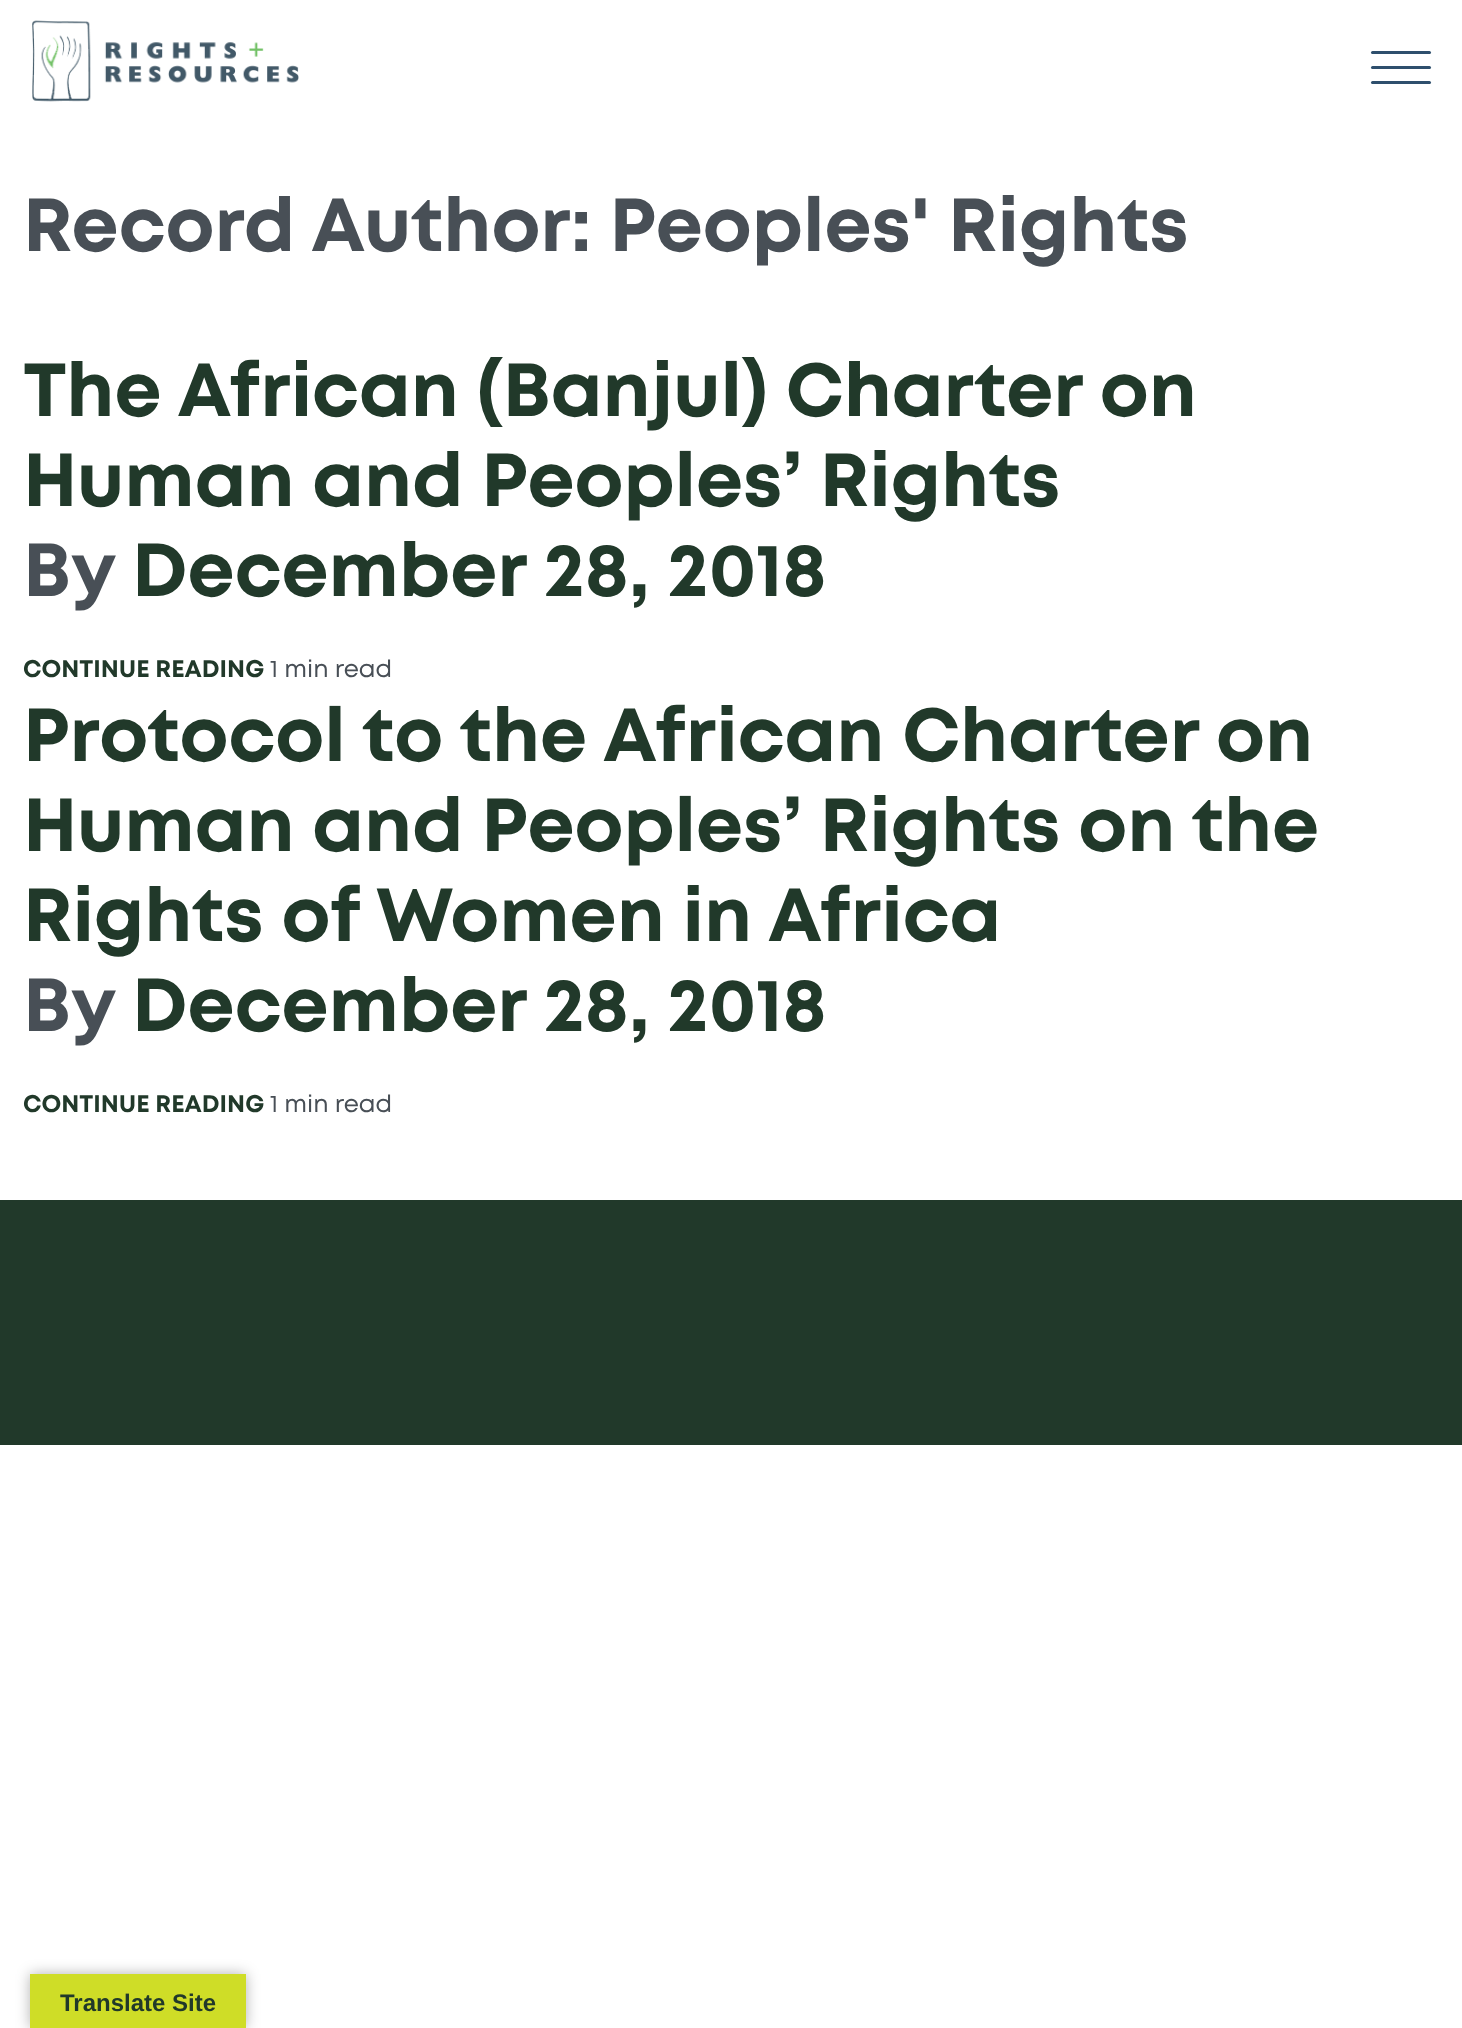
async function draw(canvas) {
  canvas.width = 1462
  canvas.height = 2028
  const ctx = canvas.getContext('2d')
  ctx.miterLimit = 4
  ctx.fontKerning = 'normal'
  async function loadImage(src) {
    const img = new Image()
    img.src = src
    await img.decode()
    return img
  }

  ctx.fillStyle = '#fff'
  ctx.fillRect(0, 0, 1462, 2028)
  ctx.drawImage(await loadImage('image0.png'), 32, 20, 267, 82)
  ctx.fillStyle = '#2e4f6d'
  ctx.beginPath()
  ctx.roundRect(1371, 51, 60, 3, 1.5)
  ctx.fill()
  ctx.beginPath()
  ctx.roundRect(1371, 66, 60, 3, 1.5)
  ctx.fill()
  ctx.beginPath()
  ctx.roundRect(1371, 81, 60, 3, 1.5)
  ctx.fill()
  ctx.font = 'bold 75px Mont'
  ctx.fillStyle = '#484f56'
  ctx.fillText('Record Author: Peoples\' Rights', 23, 251)
  ctx.fillStyle = '#21392a'
  ctx.fillText('The African (Banjul) Charter on', 23, 416)
  ctx.fillText('Human and Peoples’ Rights', 23, 506)
  ctx.fillStyle = '#484f56'
  ctx.fillText('By', 23, 596)
  ctx.fillStyle = '#21392a'
  ctx.fillText('December 28, 2018', 132, 596)
  ctx.font = 'bold 24px Mont'
  ctx.fillText('CONTINUE READING', 23, 677)
  ctx.font = '24px Mont'
  ctx.fillStyle = '#484f56'
  ctx.fillText('1 min read', 270, 677)
  ctx.font = 'bold 75px Mont'
  ctx.fillStyle = '#21392a'
  ctx.fillText('Protocol to the African Charter on', 23, 761)
  ctx.fillText('Human and Peoples’ Rights on the', 23, 851)
  ctx.fillText('Rights of Women in Africa', 23, 941)
  ctx.fillStyle = '#484f56'
  ctx.fillText('By', 23, 1031)
  ctx.fillStyle = '#21392a'
  ctx.fillText('December 28, 2018', 132, 1031)
  ctx.font = 'bold 24px Mont'
  ctx.fillText('CONTINUE READING', 23, 1112)
  ctx.font = '24px Mont'
  ctx.fillStyle = '#484f56'
  ctx.fillText('1 min read', 270, 1112)
  ctx.fillStyle = '#21392a'
  ctx.fillRect(0, 1200, 1462, 245)
  ctx.fillStyle = '#0000004d'
  ctx.filter = 'blur(7px)'
  ctx.beginPath()
  ctx.rect(30, 1974, 216, 54)
  ctx.fill()
  ctx.filter = 'none'
  ctx.fillStyle = '#cfdd27'
  ctx.fillRect(30, 1974, 216, 54)
  ctx.font = 'bold 24px Liberation Sans'
  ctx.fillStyle = '#21392a'
  ctx.fillText('Translate Site', 60, 2011)
}

draw(document.querySelector('canvas'))
